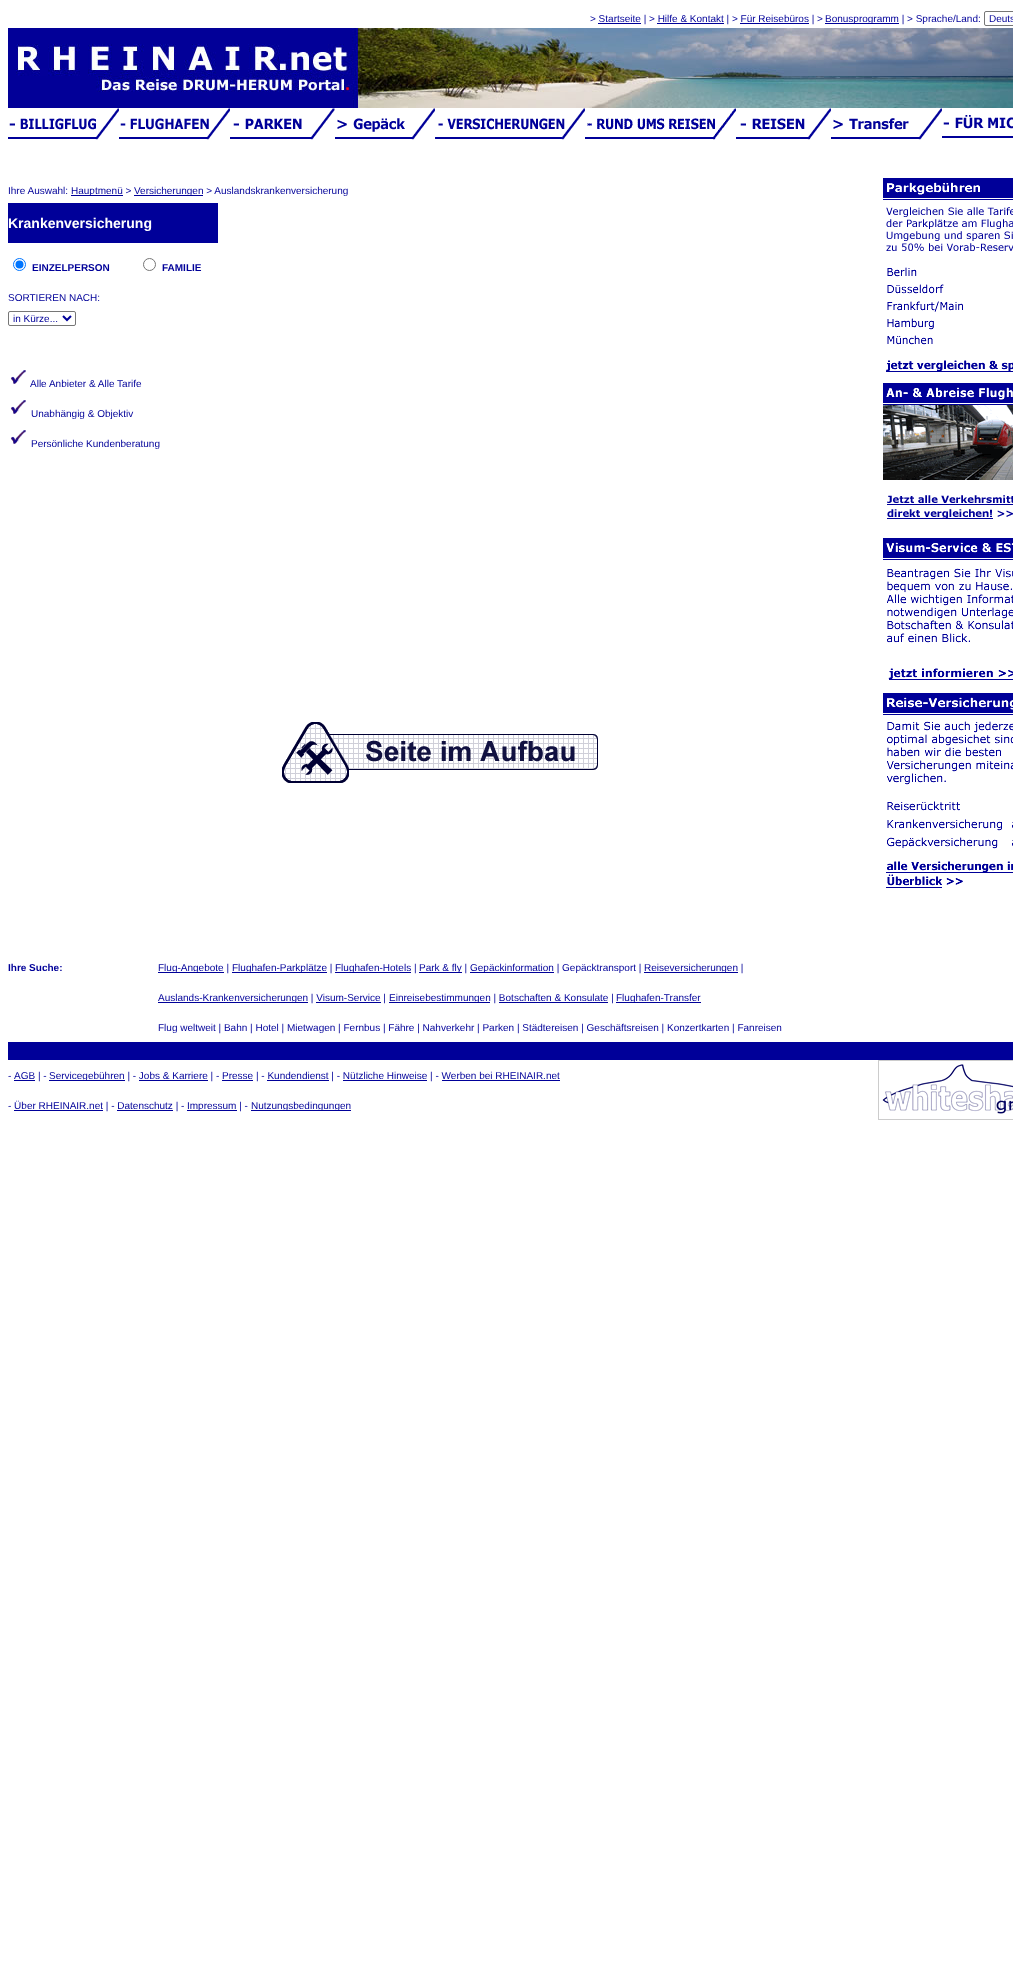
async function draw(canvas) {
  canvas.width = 1013
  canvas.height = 1964
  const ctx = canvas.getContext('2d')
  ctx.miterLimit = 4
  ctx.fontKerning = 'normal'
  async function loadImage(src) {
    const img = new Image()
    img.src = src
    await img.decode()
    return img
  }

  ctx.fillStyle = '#fff'
  ctx.fillRect(0, 0, 1013, 1964)
  ctx.font = '10px Liberation Sans'
  ctx.fillStyle = '#009'
  ctx.fillText('> Startseite | > Hilfe & Kontakt | > Für Reisebüros | >', 590, 22)
  ctx.fillRect(598, 23, 43, 1)
  ctx.fillRect(657, 23, 67, 1)
  ctx.fillRect(740, 23, 69, 1)
  ctx.fillRect(825, 23, 74, 1)
  ctx.fillText('Bonusprogramm | > Sprache/Land:', 825, 22)
  ctx.beginPath()
  ctx.roundRect(984.5, 11.5, 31, 14, 1.5)
  ctx.strokeStyle = '#767676'
  ctx.stroke()
  ctx.fillText('Deuts', 989, 22)
  ctx.drawImage(await loadImage('image0.png'), 8, 28, 1005, 80)
  ctx.drawImage(await loadImage('image1.png'), 8, 108, 111, 32)
  ctx.drawImage(await loadImage('image2.png'), 119, 108, 111, 32)
  ctx.drawImage(await loadImage('image3.png'), 230, 108, 105, 32)
  ctx.drawImage(await loadImage('image4.png'), 335, 108, 100, 32)
  ctx.drawImage(await loadImage('image5.png'), 435, 108, 150, 32)
  ctx.drawImage(await loadImage('image6.png'), 585, 108, 151, 32)
  ctx.drawImage(await loadImage('image7.png'), 736, 108, 95, 32)
  ctx.drawImage(await loadImage('image8.png'), 831, 108, 111, 32)
  ctx.drawImage(await loadImage('image9.png'), 942, 115, 71, 23)
  ctx.fillText('Ihre Auswahl:', 8, 194)
  ctx.fillRect(71, 195, 52, 1)
  ctx.fillText('Hauptmenü >', 71, 194)
  ctx.fillRect(134, 195, 69, 1)
  ctx.fillText('Versicherungen > Auslandskrankenversicherung', 134, 194)
  ctx.fillRect(8, 203, 210, 40)
  ctx.font = 'bold 14px Liberation Sans'
  ctx.fillStyle = '#fff'
  ctx.fillText('Krankenversicherung', 8, 228)
  ctx.beginPath()
  ctx.arc(19.5, 264.5, 6, 0, 2 * Math.PI)
  ctx.strokeStyle = '#0075ff'
  ctx.stroke()
  ctx.fillStyle = '#0075ff'
  ctx.beginPath()
  ctx.arc(19.5, 264.5, 4, 0, 2 * Math.PI)
  ctx.fill()
  ctx.font = 'bold 10px Liberation Sans'
  ctx.fillStyle = '#009'
  ctx.fillText('EINZELPERSON', 32, 271)
  ctx.beginPath()
  ctx.arc(149.5, 264.5, 6, 0, 2 * Math.PI)
  ctx.strokeStyle = '#767676'
  ctx.stroke()
  ctx.fillText('FAMILIE', 162, 271)
  ctx.font = '10px Liberation Sans'
  ctx.fillText('SORTIEREN NACH:', 8, 301)
  ctx.beginPath()
  ctx.roundRect(8.5, 311.5, 67, 14, 1.5)
  ctx.stroke()
  ctx.beginPath()
  ctx.moveTo(63, 316)
  ctx.lineTo(67, 320)
  ctx.lineTo(71, 316)
  ctx.strokeStyle = '#009'
  ctx.lineWidth = 2
  ctx.stroke()
  ctx.fillText('in Kürze...', 13, 322)
  ctx.drawImage(await loadImage('image10.png'), 10, 370, 16, 14)
  ctx.fillText('Alle Anbieter & Alle Tarife', 30, 387)
  ctx.drawImage(await loadImage('image10.png'), 10, 400, 16, 14)
  ctx.fillText('Unabhängig & Objektiv', 31, 417)
  ctx.drawImage(await loadImage('image10.png'), 10, 430, 16, 14)
  ctx.fillText('Persönliche Kundenberatung', 31, 447)
  ctx.drawImage(await loadImage('image11.png'), 883, 178, 130, 194)
  ctx.drawImage(await loadImage('image12.png'), 883, 383, 130, 136)
  ctx.drawImage(await loadImage('image13.png'), 883, 538, 130, 142)
  ctx.drawImage(await loadImage('image14.png'), 883, 693, 130, 195)
  ctx.drawImage(await loadImage('image15.png'), 282, 722, 316, 61)
  ctx.font = 'bold 10px Liberation Sans'
  ctx.fillText('Ihre Suche:', 8, 971)
  ctx.fillRect(158, 972, 66, 1)
  ctx.font = '10px Liberation Sans'
  ctx.fillText('Flug-Angebote |', 158, 971)
  ctx.fillRect(232, 972, 95, 1)
  ctx.fillText('Flughafen-Parkplätze |', 232, 971)
  ctx.fillRect(335, 972, 76, 1)
  ctx.fillText('Flughafen-Hotels |', 335, 971)
  ctx.fillRect(419, 972, 43, 1)
  ctx.fillText('Park & fly |', 419, 971)
  ctx.fillRect(470, 972, 84, 1)
  ctx.fillText('Gepäckinformation | Gepäcktransport |', 470, 971)
  ctx.fillRect(644, 972, 94, 1)
  ctx.fillText('Reiseversicherungen |', 644, 971)
  ctx.fillRect(158, 1002, 150, 1)
  ctx.fillText('Auslands-Krankenversicherungen | Visum-Service |', 158, 1001)
  ctx.fillRect(389, 1002, 101, 1)
  ctx.fillText('Einreisebestimmungen | Botschaften & Konsulate |', 389, 1001)
  ctx.fillRect(616, 1002, 85, 1)
  ctx.fillText('Flughafen-Transfer', 616, 1001)
  ctx.fillRect(316, 1002, 65, 1)
  ctx.fillRect(499, 1002, 109, 1)
  ctx.fillText('Flug weltweit | Bahn | Hotel | Mietwagen | Fernbus | Fähre | Nahverkehr | Parken | Städtereisen | Geschäftsreisen | Konzertkarten | Fanreisen', 158, 1031)
  ctx.fillRect(8, 1042, 1005, 18)
  ctx.fillText('-', 8, 1079)
  ctx.fillRect(14, 1080, 21, 1)
  ctx.fillText('AGB | -', 14, 1079)
  ctx.fillRect(49, 1080, 76, 1)
  ctx.fillText('Servicegebühren | - Jobs & Karriere | - Presse | - Kundendienst | - Nützliche Hinweise | - Werben bei RHEINAIR.net', 49, 1079)
  ctx.fillRect(139, 1080, 69, 1)
  ctx.fillRect(222, 1080, 31, 1)
  ctx.fillRect(267, 1080, 62, 1)
  ctx.fillRect(343, 1080, 84, 1)
  ctx.fillRect(442, 1080, 118, 1)
  ctx.drawImage(await loadImage('image16.png'), 878, 1060, 135, 60)
  ctx.fillText('- Über RHEINAIR.net | - Datenschutz | -', 8, 1109)
  ctx.fillRect(187, 1110, 50, 1)
  ctx.fillText('Impressum | -', 187, 1109)
  ctx.fillRect(251, 1110, 100, 1)
  ctx.fillText('Nutzungsbedingungen', 251, 1109)
  ctx.fillRect(14, 1110, 89, 1)
  ctx.fillRect(117, 1110, 56, 1)
}

draw(document.querySelector('canvas'))
